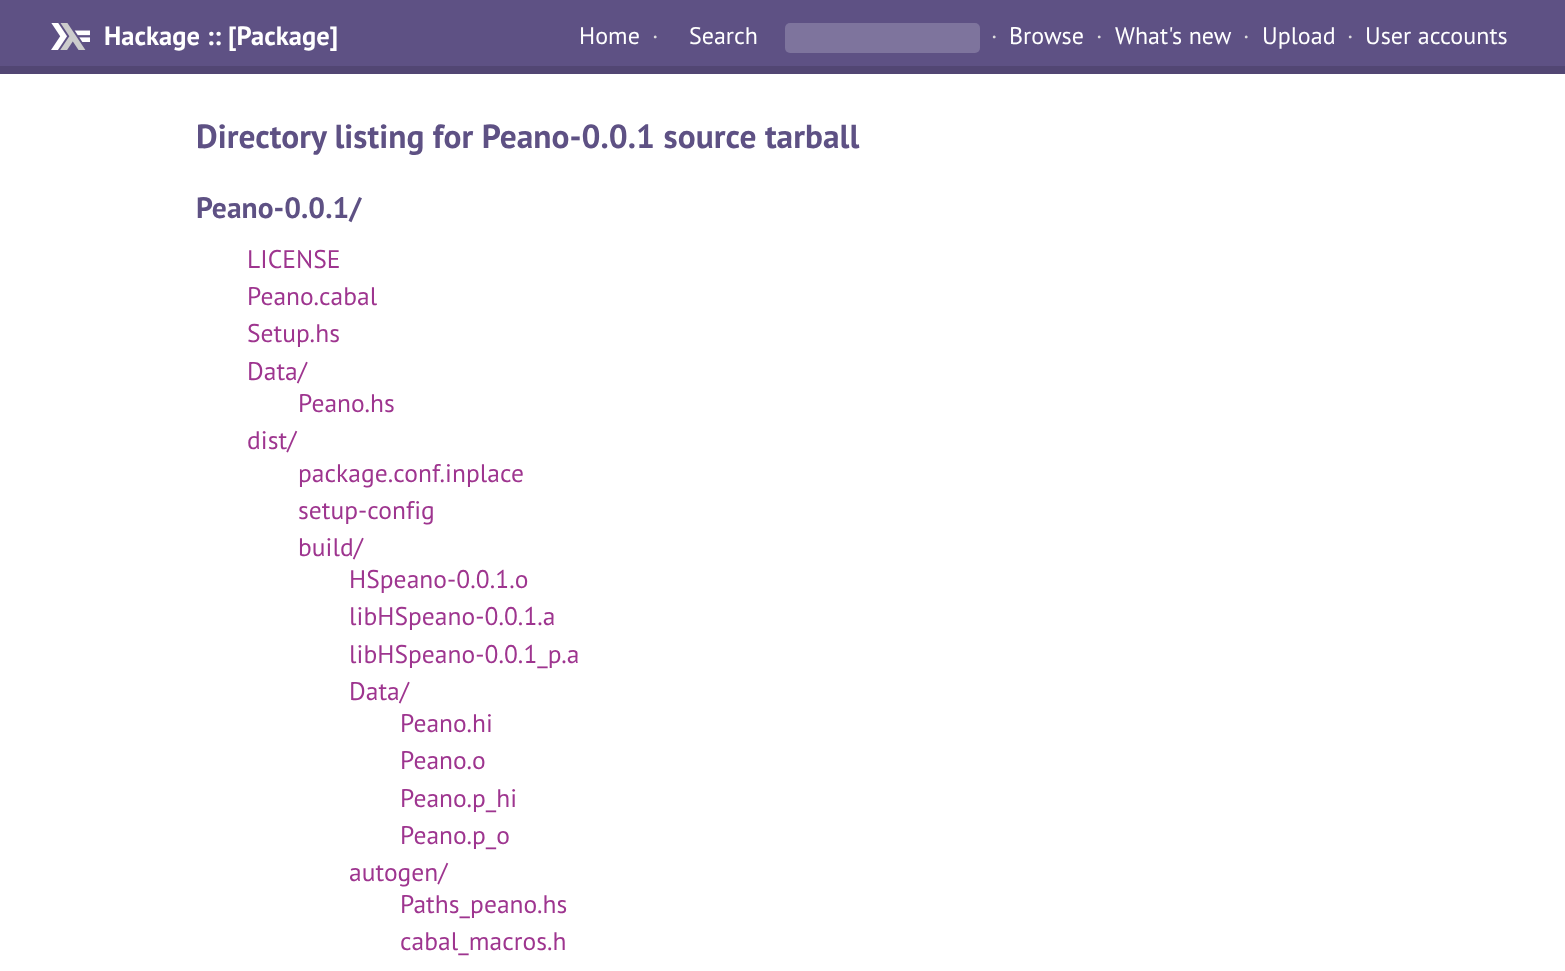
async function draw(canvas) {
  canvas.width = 1565
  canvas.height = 971
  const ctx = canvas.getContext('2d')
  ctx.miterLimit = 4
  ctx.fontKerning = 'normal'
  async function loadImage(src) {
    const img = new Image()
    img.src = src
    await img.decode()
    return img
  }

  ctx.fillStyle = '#fff'
  ctx.fillRect(0, 0, 1565, 971)
  ctx.fillStyle = '#5e5184'
  ctx.fillRect(0, 0, 1565, 66)
  ctx.fillStyle = '#524673'
  ctx.fillRect(0, 66, 1565, 8)
  ctx.drawImage(await loadImage('image0.png'), 51, 23, 39, 27)
  ctx.letterSpacing = '0.05px'
  ctx.font = 'bold 26.5px PT Sans'
  ctx.fillStyle = '#fff'
  ctx.fillText('Hackage :: [Package]', 104, 45)
  ctx.font = '24px PT Sans'
  ctx.fillText('Home', 579, 44)
  ctx.fillStyle = '#ddd'
  ctx.fillText('·', 652, 44)
  ctx.letterSpacing = '0px'
  ctx.fillStyle = '#fff'
  ctx.fillText('Search', 689, 44)
  ctx.fillStyle = '#7e749d'
  ctx.beginPath()
  ctx.roundRect(785, 23, 195, 30, 5)
  ctx.fill()
  ctx.letterSpacing = '0.05px'
  ctx.fillStyle = '#ddd'
  ctx.fillText('·', 991, 44)
  ctx.fillStyle = '#fff'
  ctx.fillText('Browse', 1009, 44)
  ctx.fillStyle = '#ddd'
  ctx.fillText('·', 1096, 44)
  ctx.fillStyle = '#fff'
  ctx.fillText('What\'s new', 1115, 44)
  ctx.fillStyle = '#ddd'
  ctx.fillText('·', 1243, 44)
  ctx.fillStyle = '#fff'
  ctx.fillText('Upload', 1262, 44)
  ctx.fillStyle = '#ddd'
  ctx.fillText('·', 1347, 44)
  ctx.fillStyle = '#fff'
  ctx.fillText('User accounts', 1365, 44)
  ctx.font = 'bold 33.4px PT Sans'
  ctx.fillStyle = '#5e5184'
  ctx.fillText('Directory listing for Peano-0.0.1 source tarball', 196, 148)
  ctx.font = 'bold 29.5px PT Sans'
  ctx.fillText('Peano-0.0.1/', 196, 218)
  ctx.font = '25.5px PT Sans'
  ctx.fillStyle = '#9e358f'
  ctx.fillText('LICENSE', 247, 268)
  ctx.fillText('Peano.cabal', 247, 305)
  ctx.fillText('Setup.hs', 247, 342)
  ctx.fillText('Data/', 247, 380)
  ctx.fillText('Peano.hs', 298, 412)
  ctx.fillText('dist/', 247, 449)
  ctx.fillText('package.conf.inplace', 298, 482)
  ctx.fillText('setup-config', 298, 519)
  ctx.fillText('build/', 298, 556)
  ctx.fillText('HSpeano-0.0.1.o', 349, 588)
  ctx.fillText('libHSpeano-0.0.1.a', 349, 625)
  ctx.fillText('libHSpeano-0.0.1_p.a', 349, 663)
  ctx.fillText('Data/', 349, 700)
  ctx.fillText('Peano.hi', 400, 732)
  ctx.fillText('Peano.o', 400, 769)
  ctx.fillText('Peano.p_hi', 400, 807)
  ctx.fillText('Peano.p_o', 400, 844)
  ctx.fillText('autogen/', 349, 881)
  ctx.fillText('Paths_peano.hs', 400, 913)
  ctx.fillText('cabal_macros.h', 400, 950)
}

draw(document.querySelector('canvas'))
